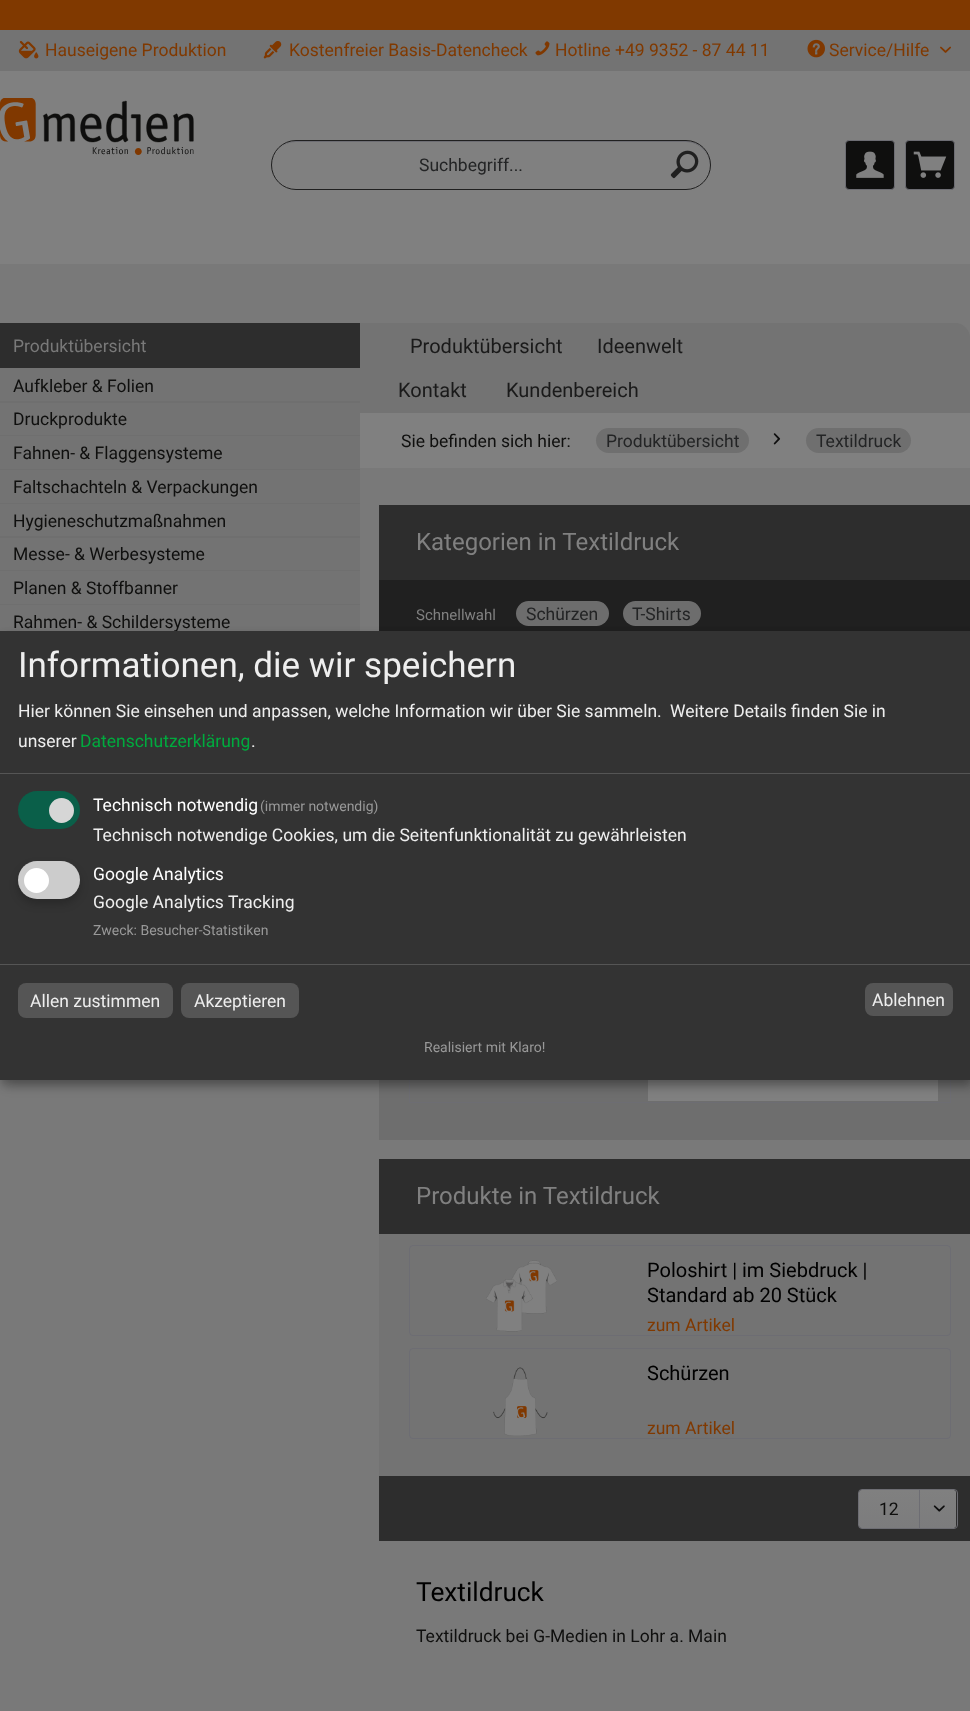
async function draw(canvas) {
  canvas.width = 970
  canvas.height = 1711
  const ctx = canvas.getContext('2d')
  ctx.miterLimit = 4
  ctx.fontKerning = 'normal'
  async function loadImage(src) {
    const img = new Image()
    img.src = src
    await img.decode()
    return img
  }
  let gradient

  ctx.fillStyle = '#797979'
  ctx.fillRect(0, 0, 970, 1711)
  ctx.fillStyle = '#808080'
  ctx.fillRect(0, 71, 970, 193)
  ctx.fillStyle = '#803900'
  ctx.fillRect(0, 0, 970, 30)
  ctx.fillStyle = '#737373'
  ctx.fillRect(0, 30, 970, 41)
  ctx.drawImage(await loadImage('image0.png'), 18, 41, 21, 18)
  ctx.font = '17.5px Roboto'
  ctx.fillStyle = '#803900'
  ctx.fillText('Hauseigene Produktion', 45, 56)
  ctx.drawImage(await loadImage('image1.png'), 263, 41, 19, 18)
  ctx.fillText('Kostenfreier Basis-Datencheck', 289, 56)
  ctx.drawImage(await loadImage('image2.png'), 535, 41, 15, 15)
  ctx.fillText('Hotline +49 9352 - 87 44 11', 555, 56)
  ctx.drawImage(await loadImage('image3.png'), 807, 39, 18, 19)
  ctx.fillText('Service/Hilfe', 829, 56)
  ctx.drawImage(await loadImage('image4.png'), 940, 46, 11, 7)
  ctx.drawImage(await loadImage('image5.png'), 0, 98, 194, 57)
  ctx.fillStyle = '#6d6d73'
  ctx.beginPath()
  ctx.moveTo(296, 142)
  ctx.lineTo(686, 142)
  ctx.bezierCurveTo(699, 142, 710, 153, 710, 166)
  ctx.lineTo(710, 165)
  ctx.bezierCurveTo(710, 152, 699, 141, 686, 141)
  ctx.lineTo(297, 141)
  ctx.bezierCurveTo(289, 141, 282, 145, 278, 150)
  ctx.bezierCurveTo(282, 145, 289, 142, 296, 142)
  ctx.closePath()
  ctx.fill()
  ctx.beginPath()
  ctx.roundRect(271.5, 140.5, 439, 49, 24.5)
  ctx.strokeStyle = '#202020'
  ctx.stroke()
  ctx.fillStyle = '#232425'
  ctx.fillText('Suchbegriff...', 419, 171)
  ctx.drawImage(await loadImage('image6.png'), 670, 150, 29, 29)
  ctx.fillStyle = '#0f0f0e'
  ctx.beginPath()
  ctx.roundRect(845.5, 140.5, 49, 49, 3.5)
  ctx.fill()
  ctx.strokeStyle = '#6d6d73'
  ctx.stroke()
  ctx.drawImage(await loadImage('image7.png'), 856, 151, 28, 27)
  ctx.beginPath()
  ctx.roundRect(905.5, 140.5, 49, 49, 3.5)
  ctx.fill()
  ctx.stroke()
  ctx.drawImage(await loadImage('image8.png'), 913, 151, 34, 27)
  ctx.fillStyle = '#737373'
  ctx.fillRect(0, 368, 360, 33)
  ctx.fillStyle = '#2d2d2d'
  ctx.fillRect(0, 323, 360, 45)
  ctx.fillStyle = '#797979'
  ctx.fillText('Produktübersicht', 13, 352)
  ctx.fillStyle = '#6f6f6f'
  ctx.fillRect(0, 401, 360, 204)
  ctx.fillStyle = '#0f0f0e'
  ctx.fillText('Aufkleber & Folien', 13, 392)
  ctx.fillStyle = '#737373'
  ctx.fillRect(0, 403, 360, 32)
  ctx.fillStyle = '#0f0f0e'
  ctx.fillText('Druckprodukte', 13, 425)
  ctx.fillStyle = '#737373'
  ctx.fillRect(0, 436, 360, 33)
  ctx.fillStyle = '#0f0f0e'
  ctx.fillText('Fahnen- & Flaggensysteme', 13, 459)
  ctx.fillStyle = '#737373'
  ctx.fillRect(0, 470, 360, 33)
  ctx.fillStyle = '#0f0f0e'
  ctx.fillText('Faltschachteln & Verpackungen', 13, 493)
  ctx.fillStyle = '#737373'
  ctx.fillRect(0, 504, 360, 32)
  ctx.fillStyle = '#0f0f0e'
  ctx.fillText('Hygieneschutzmaßnahmen', 13, 527)
  ctx.fillStyle = '#737373'
  ctx.fillRect(0, 538, 360, 32)
  ctx.fillStyle = '#0f0f0e'
  ctx.fillText('Messe- & Werbesysteme', 13, 560)
  ctx.fillStyle = '#737373'
  ctx.fillRect(0, 571, 360, 33)
  ctx.fillStyle = '#0f0f0e'
  ctx.fillText('Planen & Stoffbanner', 13, 594)
  ctx.fillStyle = '#737373'
  ctx.fillRect(0, 605, 360, 26)
  ctx.fillStyle = '#0f0f0e'
  ctx.fillText('Rahmen- & Schildersysteme', 13, 628)
  ctx.fillStyle = '#737373'
  ctx.beginPath()
  ctx.roundRect(360, 323, 610, 90, [0, 15, 0, 0])
  ctx.fill()
  ctx.font = '20px Roboto'
  ctx.fillStyle = '#1a1a1a'
  ctx.fillText('Produktübersicht', 410, 353)
  ctx.fillText('Ideenwelt', 597, 353)
  ctx.fillText('Kontakt', 398, 397)
  ctx.fillText('Kundenbereich', 506, 397)
  ctx.fillStyle = '#808080'
  ctx.fillRect(360, 413, 610, 55)
  ctx.font = '17.5px Roboto'
  ctx.fillStyle = '#0f0f0e'
  ctx.fillText('Sie befinden sich hier:', 401, 447)
  ctx.fillStyle = '#6f6f6f'
  ctx.beginPath()
  ctx.roundRect(596, 428, 153, 25, 12.5)
  ctx.fill()
  ctx.fillStyle = '#232425'
  ctx.fillText('Produktübersicht', 606, 447)
  ctx.drawImage(await loadImage('image9.png'), 773, 433, 8, 12)
  ctx.fillStyle = '#6f6f6f'
  ctx.beginPath()
  ctx.roundRect(806, 428, 105, 25, 12.5)
  ctx.fill()
  ctx.fillStyle = '#232425'
  ctx.fillText('Textildruck', 816, 447)
  ctx.fillStyle = '#2d2d2d'
  ctx.fillRect(379, 505, 591, 75)
  ctx.font = '24px Roboto'
  ctx.fillStyle = '#808080'
  ctx.fillText('Kategorien in Textildruck', 416, 550)
  ctx.fillStyle = '#202020'
  ctx.fillRect(379, 580, 591, 51)
  ctx.font = '15px Roboto'
  ctx.fillStyle = '#808080'
  ctx.fillText('Schnellwahl', 416, 620)
  ctx.fillStyle = '#6d6d6d'
  ctx.beginPath()
  ctx.roundRect(516, 601, 93, 25, 12.5)
  ctx.fill()
  ctx.font = '17.5px Roboto'
  ctx.fillStyle = '#232425'
  ctx.fillText('Schürzen', 526, 620)
  ctx.fillStyle = '#6d6d6d'
  ctx.beginPath()
  ctx.roundRect(623, 601, 78, 25, 12.5)
  ctx.fill()
  ctx.fillStyle = '#232425'
  ctx.fillText('T-Shirts', 632, 620)
  ctx.fillStyle = '#6e6e6e'
  ctx.fillRect(379, 1080, 591, 60)
  ctx.strokeRect(409.5, 888.5, 541, 214)
  ctx.fillStyle = '#808080'
  ctx.fillRect(648, 1080, 290, 21)
  ctx.fillStyle = '#2d2d2d'
  ctx.fillRect(379, 1159, 591, 75)
  ctx.font = '24px Roboto'
  ctx.fillStyle = '#808080'
  ctx.fillText('Produkte in Textildruck', 416, 1204)
  ctx.fillStyle = '#737373'
  ctx.fillRect(379, 1234, 591, 242)
  ctx.beginPath()
  ctx.roundRect(409.5, 1245.5, 541, 90, 3.5)
  ctx.stroke()
  ctx.drawImage(await loadImage('image10.png'), 486, 1260, 71, 72)
  ctx.font = '20px Roboto'
  ctx.fillStyle = '#000'
  ctx.fillText('Poloshirt | im Siebdruck |', 647, 1277)
  ctx.fillText('Standard ab 20 Stück', 647, 1302)
  ctx.font = '17.5px Roboto'
  ctx.fillStyle = '#803900'
  ctx.fillText('zum Artikel', 647, 1331)
  ctx.beginPath()
  ctx.roundRect(409.5, 1348.5, 541, 90, 3.5)
  ctx.stroke()
  ctx.drawImage(await loadImage('image11.png'), 493, 1367, 55, 69)
  ctx.font = '20px Roboto'
  ctx.fillStyle = '#000'
  ctx.fillText('Schürzen', 647, 1380)
  ctx.font = '17.5px Roboto'
  ctx.fillStyle = '#803900'
  ctx.fillText('zum Artikel', 647, 1434)
  ctx.fillStyle = '#2d2d2d'
  ctx.fillRect(379, 1476, 591, 65)
  gradient = ctx.createLinearGradient(908, 1490, 908, 1528)
  gradient.addColorStop(0, '#808080')
  gradient.addColorStop(1, '#7c7c7d')
  ctx.fillStyle = gradient
  ctx.beginPath()
  ctx.roundRect(859, 1490, 97, 38, 2.5)
  ctx.fill()
  ctx.beginPath()
  ctx.roundRect(858.5, 1489.5, 99, 39, 3.5)
  ctx.stroke()
  ctx.fillStyle = '#0f0f0e'
  ctx.fillText('12', 879, 1515)
  ctx.fillStyle = '#6d6d73'
  ctx.fillRect(919, 1490, 1, 39)
  ctx.drawImage(await loadImage('image12.png'), 933, 1505, 12, 7)
  ctx.font = '26.25px Roboto'
  ctx.fillStyle = '#000'
  ctx.fillText('Textildruck', 416, 1601)
  ctx.font = '17.5px Roboto'
  ctx.fillStyle = '#0f0f0e'
  ctx.fillText('Textildruck bei G-Medien in Lohr a. Main', 416, 1642)
  ctx.fillStyle = '#00000030'
  ctx.filter = 'blur(6px)'
  ctx.beginPath()
  ctx.rect(6, 638, 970, 448)
  ctx.fill()
  ctx.filter = 'none'
  ctx.fillStyle = '#00000033'
  ctx.filter = 'blur(4px)'
  ctx.beginPath()
  ctx.rect(0, 636, 970, 449)
  ctx.fill()
  ctx.filter = 'none'
  ctx.fillStyle = '#333'
  ctx.fillRect(0, 631, 970, 449)
  ctx.fillStyle = '#555'
  ctx.fillRect(0, 773, 970, 1)
  ctx.font = '35px Roboto'
  ctx.fillStyle = '#eee'
  ctx.fillText('Informationen, die wir speichern', 18, 677)
  ctx.font = '17.5px Roboto'
  ctx.fillText('Hier können Sie einsehen und anpassen, welche Information wir über Sie sammeln.', 18, 717)
  ctx.fillText('Weitere Details finden Sie in', 670, 717)
  ctx.fillText('unserer', 18, 747)
  ctx.fillStyle = '#00aa3e'
  ctx.fillText('Datenschutzerklärung', 80, 747)
  ctx.fillStyle = '#eee'
  ctx.fillText('.', 251, 747)
  ctx.fillStyle = '#0a5f49'
  ctx.beginPath()
  ctx.roundRect(18, 791, 62, 38, 19)
  ctx.fill()
  ctx.fillStyle = '#d6d6d6'
  ctx.beginPath()
  ctx.arc(61.5, 810.5, 12.5, 0, 2 * Math.PI)
  ctx.fill()
  ctx.fillStyle = '#fff'
  ctx.fillText('Technisch notwendig', 93, 811)
  ctx.font = '14px Roboto'
  ctx.fillStyle = '#999'
  ctx.fillText('(immer notwendig)', 260, 811)
  ctx.font = '17.5px Roboto'
  ctx.fillStyle = '#eee'
  ctx.fillText('Technisch notwendige Cookies, um die Seitenfunktionalität zu gewährleisten', 93, 841)
  ctx.fillStyle = '#00000033'
  ctx.filter = 'blur(4px)'
  ctx.beginPath()
  ctx.roundRect(18, 866, 62, 38, 19)
  ctx.fill()
  ctx.filter = 'none'
  ctx.fillStyle = '#ccc'
  ctx.beginPath()
  ctx.roundRect(18, 861, 62, 38, 19)
  ctx.fill()
  ctx.fillStyle = '#fff'
  ctx.beginPath()
  ctx.arc(36.5, 880.5, 12.5, 0, 2 * Math.PI)
  ctx.fill()
  ctx.fillText('Google Analytics', 93, 880)
  ctx.fillStyle = '#eee'
  ctx.fillText('Google Analytics Tracking', 93, 908)
  ctx.font = '14px Roboto'
  ctx.fillStyle = '#999'
  ctx.fillText('Zweck: Besucher-Statistiken', 93, 935)
  ctx.fillStyle = '#555'
  ctx.fillRect(0, 964, 970, 1)
  ctx.beginPath()
  ctx.roundRect(18, 983, 155, 35, 8)
  ctx.fill()
  ctx.font = '17.5px Roboto'
  ctx.fillStyle = '#eee'
  ctx.fillText('Allen zustimmen', 30, 1007)
  ctx.fillStyle = '#555'
  ctx.beginPath()
  ctx.roundRect(181, 983, 118, 35, 8)
  ctx.fill()
  ctx.fillStyle = '#eee'
  ctx.fillText('Akzeptieren', 194, 1007)
  ctx.fillStyle = '#555'
  ctx.beginPath()
  ctx.roundRect(865, 983, 88, 33, 8)
  ctx.fill()
  ctx.fillStyle = '#eee'
  ctx.fillText('Ablehnen', 872, 1006)
  ctx.font = '14px Roboto'
  ctx.fillStyle = '#999'
  ctx.fillText('Realisiert mit Klaro!', 424, 1052)
}

draw(document.querySelector('canvas'))
